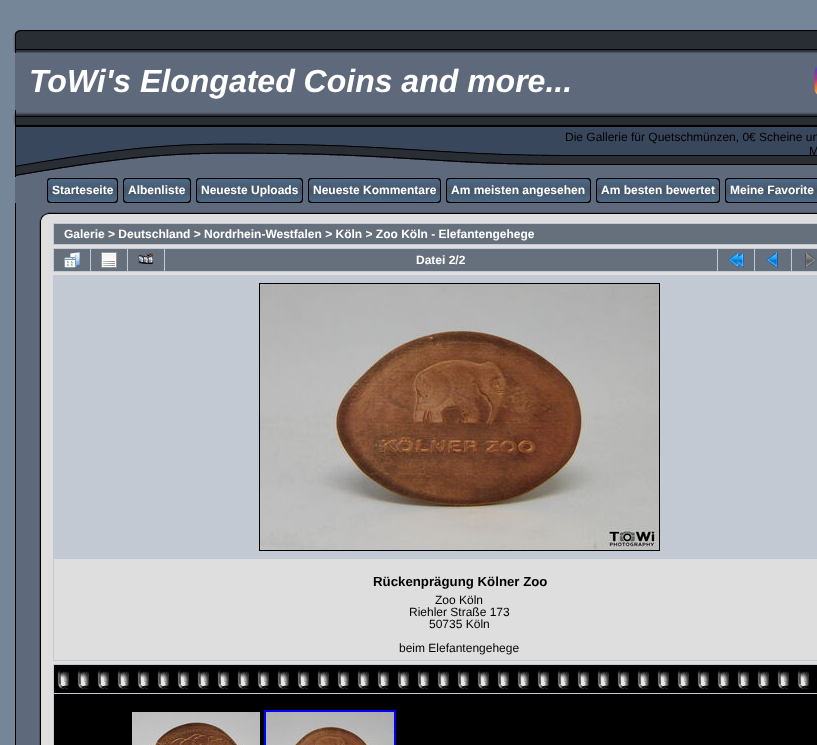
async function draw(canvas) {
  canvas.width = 817
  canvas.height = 745
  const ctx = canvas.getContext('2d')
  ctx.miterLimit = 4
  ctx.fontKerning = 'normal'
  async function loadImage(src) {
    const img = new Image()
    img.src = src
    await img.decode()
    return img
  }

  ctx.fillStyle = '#758698'
  ctx.fillRect(0, 0, 817, 745)
  ctx.drawImage(await loadImage('image0.png'), 13, 30, 29, 23)
  ctx.drawImage(await loadImage('image1.png'), 42, 30, 775, 23)
  ctx.fillStyle = '#5e697b'
  ctx.fillRect(15, 53, 802, 57)
  ctx.font = 'italic bold 32px Liberation Sans'
  ctx.fillStyle = '#fff'
  ctx.fillText('ToWi\'s Elongated Coins and more...', 29, 92)
  ctx.drawImage(await loadImage('image2.png'), 814, 66, 3, 28)
  ctx.drawImage(await loadImage('image3.png'), 13, 110, 547, 67)
  ctx.drawImage(await loadImage('image4.png'), 560, 110, 257, 67)
  ctx.font = '12px Liberation Sans'
  ctx.fillStyle = '#000'
  ctx.fillText('Die Gallerie für Quetschmünzen, 0€ Scheine un', 565, 141)
  ctx.fillText('M', 809, 155)
  ctx.fillStyle = '#5e697b'
  ctx.fillRect(15, 177, 802, 26)
  ctx.drawImage(await loadImage('image5.png'), 47, 178, 5, 25)
  ctx.drawImage(await loadImage('image6.png'), 52, 178, 61, 25)
  ctx.font = 'bold 12px Liberation Sans'
  ctx.fillStyle = '#fff'
  ctx.fillText('Starteseite', 52, 194)
  ctx.drawImage(await loadImage('image7.png'), 113, 178, 5, 25)
  ctx.drawImage(await loadImage('image5.png'), 123, 178, 5, 25)
  ctx.drawImage(await loadImage('image8.png'), 128, 178, 58, 25)
  ctx.fillText('Albenliste', 128, 194)
  ctx.drawImage(await loadImage('image7.png'), 186, 178, 5, 25)
  ctx.drawImage(await loadImage('image5.png'), 196, 178, 5, 25)
  ctx.drawImage(await loadImage('image9.png'), 201, 178, 97, 25)
  ctx.fillText('Neueste Uploads', 201, 194)
  ctx.drawImage(await loadImage('image7.png'), 298, 178, 5, 25)
  ctx.drawImage(await loadImage('image5.png'), 308, 178, 5, 25)
  ctx.drawImage(await loadImage('image10.png'), 313, 178, 123, 25)
  ctx.fillText('Neueste Kommentare', 313, 194)
  ctx.drawImage(await loadImage('image7.png'), 436, 178, 5, 25)
  ctx.drawImage(await loadImage('image5.png'), 446, 178, 5, 25)
  ctx.drawImage(await loadImage('image11.png'), 451, 178, 135, 25)
  ctx.fillText('Am meisten angesehen', 451, 194)
  ctx.drawImage(await loadImage('image7.png'), 586, 178, 5, 25)
  ctx.drawImage(await loadImage('image5.png'), 596, 178, 5, 25)
  ctx.drawImage(await loadImage('image12.png'), 601, 178, 114, 25)
  ctx.fillText('Am besten bewertet', 601, 194)
  ctx.drawImage(await loadImage('image7.png'), 715, 178, 5, 25)
  ctx.drawImage(await loadImage('image5.png'), 725, 178, 5, 25)
  ctx.drawImage(await loadImage('image13.png'), 730, 178, 87, 25)
  ctx.fillText('Meine Favorite', 730, 194)
  ctx.drawImage(await loadImage('image14.png'), 15, 203, 27, 18)
  ctx.drawImage(await loadImage('image15.png'), 42, 203, 14, 18)
  ctx.drawImage(await loadImage('image16.png'), 56, 203, 761, 18)
  ctx.drawImage(await loadImage('image17.png'), 15, 221, 27, 524)
  ctx.fillStyle = '#dedede'
  ctx.fillRect(42, 221, 775, 524)
  ctx.fillStyle = '#c2c9d3'
  ctx.fillRect(53, 223, 764, 22)
  ctx.fillStyle = '#66707c'
  ctx.fillRect(54, 224, 763, 20)
  ctx.fillStyle = '#fff'
  ctx.fillText('Galerie > Deutschland > Nordrhein-Westfalen > Köln > Zoo Köln - Elefantengehege', 64, 238)
  ctx.fillStyle = '#c2c9d3'
  ctx.fillRect(53, 248, 764, 24)
  ctx.fillStyle = '#66707c'
  ctx.fillRect(54, 249, 36, 22)
  ctx.drawImage(await loadImage('image18.png'), 64, 252, 16, 16)
  ctx.fillRect(91, 249, 36, 22)
  ctx.drawImage(await loadImage('image19.png'), 101, 252, 16, 16)
  ctx.fillRect(128, 249, 36, 22)
  ctx.drawImage(await loadImage('image20.png'), 138, 253, 16, 12)
  ctx.fillRect(165, 249, 552, 22)
  ctx.fillStyle = '#fff'
  ctx.fillText('Datei 2/2', 416, 264)
  ctx.fillStyle = '#66707c'
  ctx.fillRect(718, 249, 36, 22)
  ctx.drawImage(await loadImage('image21.png'), 728, 252, 16, 16)
  ctx.fillRect(755, 249, 36, 22)
  ctx.drawImage(await loadImage('image22.png'), 766, 252, 12, 16)
  ctx.fillRect(792, 249, 25, 22)
  ctx.drawImage(await loadImage('image23.png'), 805, 252, 12, 16)
  ctx.fillStyle = '#c2c9d3'
  ctx.fillRect(53, 275, 764, 386)
  ctx.strokeStyle = '#000'
  ctx.strokeRect(259.5, 283.5, 400, 267)
  ctx.drawImage(await loadImage('image24.png'), 260, 284, 399, 266)
  ctx.fillStyle = '#dedede'
  ctx.fillRect(54, 559, 763, 101)
  ctx.font = 'bold 13.25px Liberation Sans'
  ctx.fillStyle = '#000'
  ctx.fillText('Rückenprägung Kölner Zoo', 373, 586)
  ctx.font = '12px Liberation Sans'
  ctx.fillText('Zoo Köln', 435, 604)
  ctx.fillText('Riehler Straße 173', 409, 616)
  ctx.fillText('50735 Köln', 429, 628)
  ctx.fillText('beim Elefantengehege', 399, 652)
  ctx.fillStyle = '#c2c9d3'
  ctx.fillRect(53, 664, 764, 81)
  ctx.fillStyle = '#000'
  ctx.fillRect(54, 665, 763, 28)
  ctx.drawImage(await loadImage('image25.png'), 57, 665, 754, 24)
  ctx.fillRect(54, 694, 763, 51)
  ctx.drawImage(await loadImage('image26.png'), 132, 712, 128, 33)
  ctx.strokeStyle = '#00f'
  ctx.lineWidth = 2
  ctx.strokeRect(265, 711, 130, 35)
  ctx.drawImage(await loadImage('image27.png'), 266, 712, 128, 33)
}

draw(document.querySelector('canvas'))
